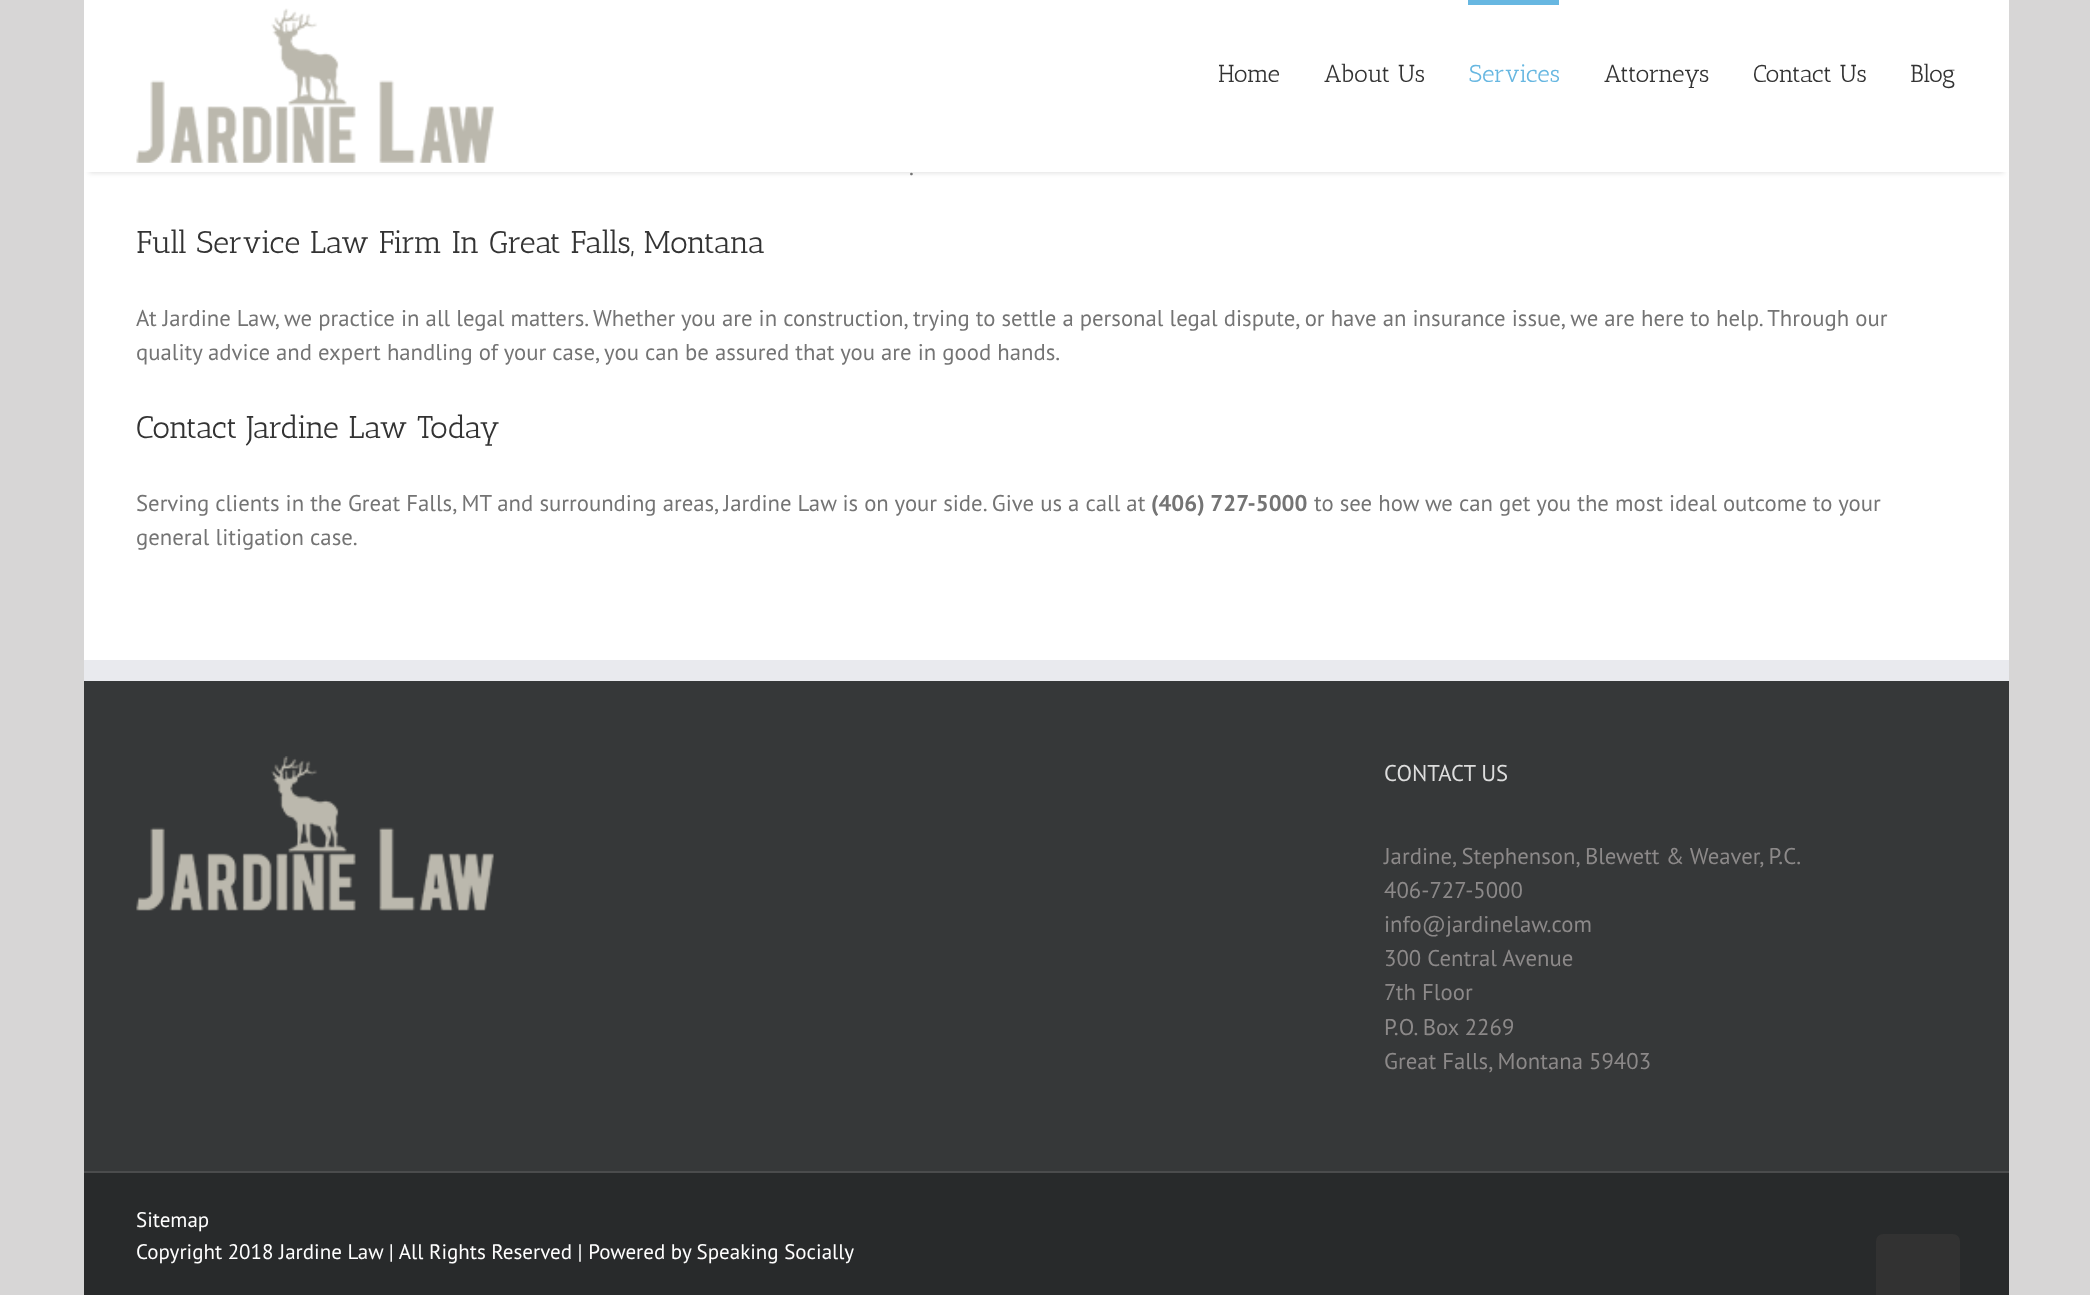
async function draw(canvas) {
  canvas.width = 2090
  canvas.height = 1295
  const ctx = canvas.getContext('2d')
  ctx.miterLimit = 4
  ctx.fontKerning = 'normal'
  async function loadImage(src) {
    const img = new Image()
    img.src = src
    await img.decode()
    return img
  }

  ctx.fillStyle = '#d7d6d6'
  ctx.fillRect(0, 0, 2090, 1295)
  ctx.fillStyle = '#fff'
  ctx.fillRect(84, 172, 1925, 488)
  ctx.fillStyle = '#0000001f'
  ctx.filter = 'blur(2.5px)'
  ctx.beginPath()
  ctx.rect(89, 12, 1915, 161)
  ctx.fill()
  ctx.filter = 'none'
  ctx.fillStyle = '#fff'
  ctx.fillRect(84, 0, 1925, 172)
  ctx.drawImage(await loadImage('image0.png'), 136, 8, 358, 155)
  ctx.font = '24.5px Antic Slab'
  ctx.fillStyle = '#333'
  ctx.fillText('Home', 1218, 82)
  ctx.fillText('About Us', 1324, 82)
  ctx.fillStyle = '#67b7e1'
  ctx.fillRect(1468, 0, 91, 5)
  ctx.fillText('Services', 1469, 82)
  ctx.fillStyle = '#333'
  ctx.fillText('Attorneys', 1604, 82)
  ctx.fillText('Contact Us', 1753, 82)
  ctx.fillText('Blog', 1910, 82)
  ctx.font = '22.75px PT Sans'
  ctx.fillStyle = '#747474'
  ctx.fillText('.', 909, 175)
  ctx.font = '31.5px Antic Slab'
  ctx.fillStyle = '#333'
  ctx.fillText('Full Service Law Firm In Great Falls, Montana', 136, 253)
  ctx.font = '22.75px PT Sans'
  ctx.fillStyle = '#747474'
  ctx.fillText('At Jardine Law, we practice in all legal matters. Whether you are in construction, trying to settle a personal legal dispute, or have an insurance issue, we are here to help. Through our', 136, 326)
  ctx.fillText('quality advice and expert handling of your case, you can be assured that you are in good hands.', 136, 360)
  ctx.font = '31.5px Antic Slab'
  ctx.fillStyle = '#333'
  ctx.fillText('Contact Jardine Law Today', 136, 438)
  ctx.font = '22.75px PT Sans'
  ctx.fillStyle = '#747474'
  ctx.fillText('Serving clients in the Great Falls, MT and surrounding areas, Jardine Law is on your side. Give us a call at', 136, 511)
  ctx.font = 'bold 22.75px PT Sans'
  ctx.fillText('(406) 727-5000', 1151, 511)
  ctx.font = '22.75px PT Sans'
  ctx.fillText('to see how we can get you the most ideal outcome to your', 1314, 511)
  ctx.fillText('general litigation case.', 136, 545)
  ctx.fillStyle = '#363839'
  ctx.fillRect(84, 681, 1925, 490)
  ctx.fillStyle = '#e9eaee'
  ctx.fillRect(84, 660, 1925, 21)
  ctx.drawImage(await loadImage('image1.png'), 136, 756, 358, 155)
  ctx.fillStyle = '#ddd'
  ctx.fillText('CONTACT US', 1384, 781)
  ctx.fillStyle = '#8c8989'
  ctx.fillText('Jardine, Stephenson, Blewett & Weaver, P.C.', 1384, 864)
  ctx.fillText('406-727-5000', 1384, 898)
  ctx.fillText('info@jardinelaw.com', 1384, 932)
  ctx.fillText('300 Central Avenue', 1384, 966)
  ctx.fillText('7th Floor', 1384, 1000)
  ctx.fillText('P.O. Box 2269', 1384, 1035)
  ctx.fillText('Great Falls, Montana 59403', 1384, 1069)
  ctx.fillStyle = '#282a2b'
  ctx.fillRect(84, 1173, 1925, 122)
  ctx.fillStyle = '#4b4c4d'
  ctx.fillRect(84, 1171, 1925, 2)
  ctx.font = '21px PT Sans'
  ctx.fillStyle = '#fff'
  ctx.fillText('Sitemap', 136, 1227)
  ctx.fillText('Copyright 2018 Jardine Law | All Rights Reserved | Powered by Speaking Socially', 136, 1259)
  ctx.fillStyle = '#323232'
  ctx.beginPath()
  ctx.roundRect(1876, 1234, 84, 61, [7, 7, 0, 0])
  ctx.fill()
}

draw(document.querySelector('canvas'))
